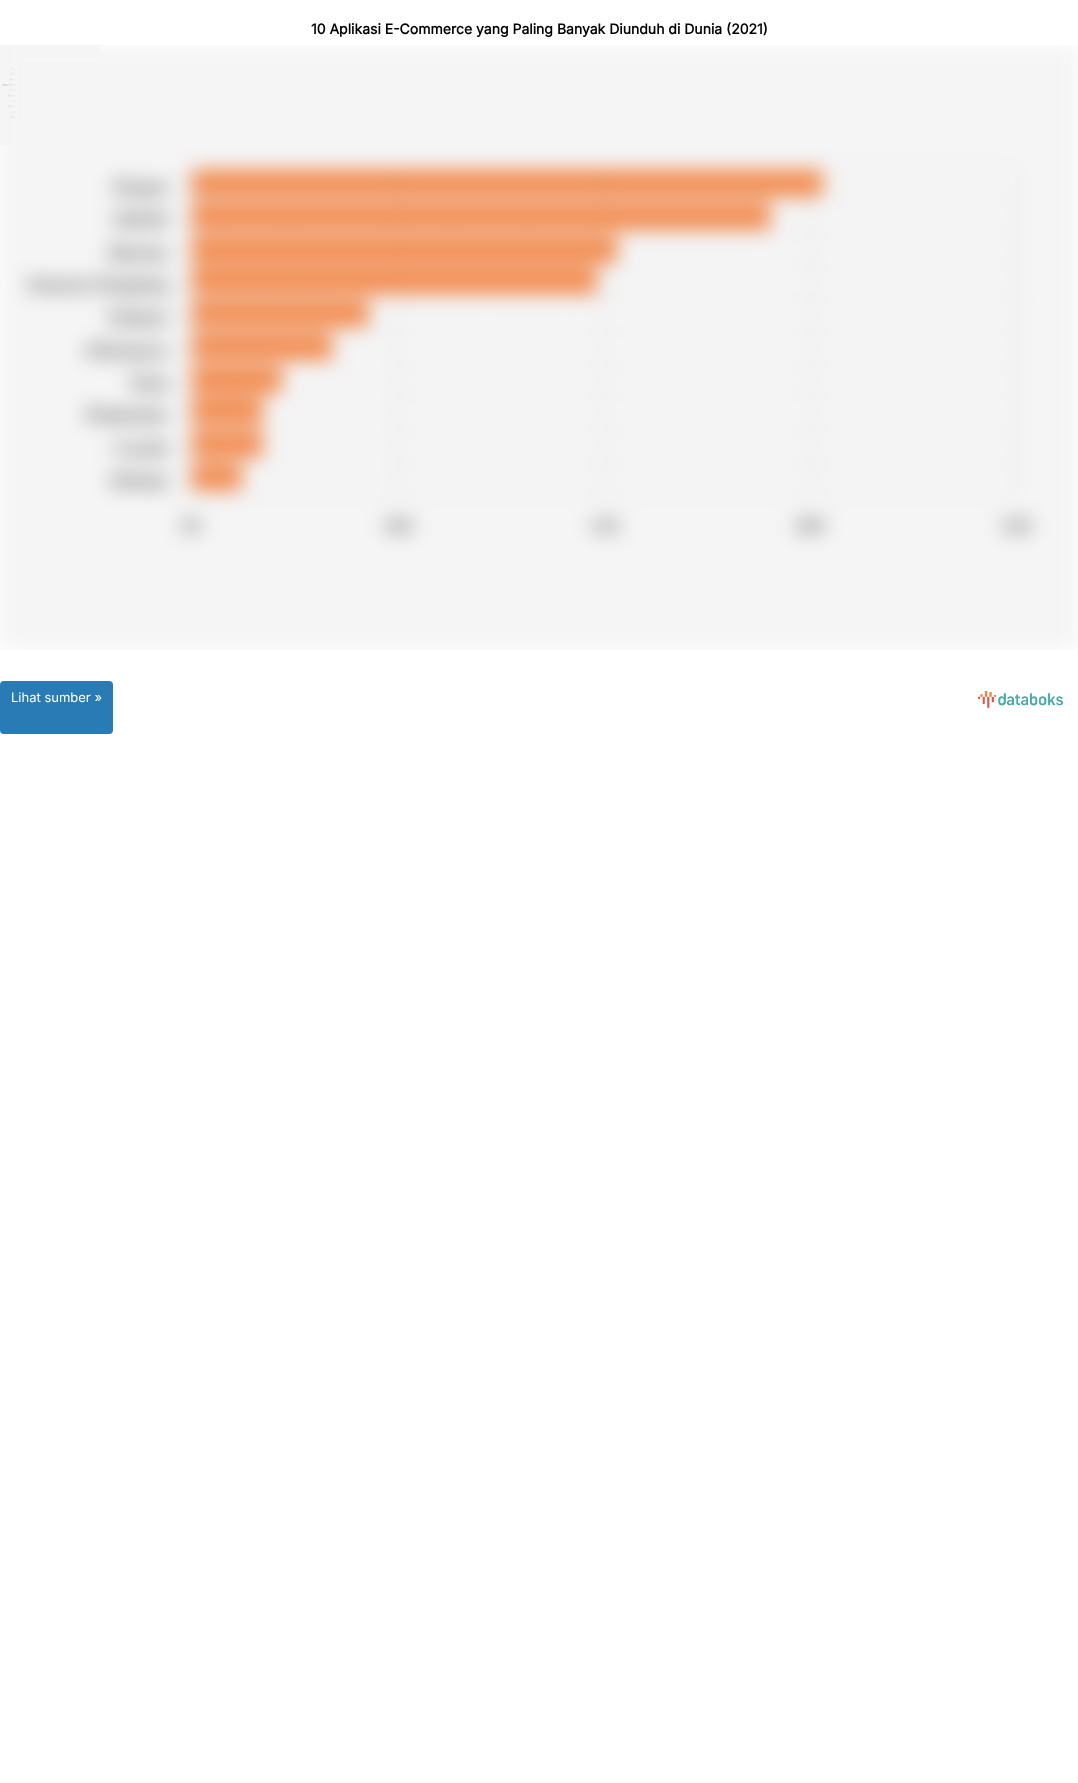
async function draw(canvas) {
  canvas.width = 1078
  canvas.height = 1783
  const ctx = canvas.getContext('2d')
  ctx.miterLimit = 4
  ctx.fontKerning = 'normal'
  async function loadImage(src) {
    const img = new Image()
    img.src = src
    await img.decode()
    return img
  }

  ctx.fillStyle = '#fff'
  ctx.fillRect(0, 0, 1078, 1783)
  ctx.font = 'bold 14px Inter'
  ctx.fillStyle = '#000'
  ctx.fillText('10 Aplikasi E-Commerce yang Paling Banyak Diunduh di Dunia (2021)', 311, 34)
  ctx.drawImage(await loadImage('image0.png'), 0, 45, 1078, 605)
  ctx.fillStyle = '#287bb5'
  ctx.beginPath()
  ctx.roundRect(0, 681, 113, 53, 4)
  ctx.fill()
  ctx.font = '13px Inter'
  ctx.fillStyle = '#fff'
  ctx.fillText('Lihat sumber »', 11, 702)
  ctx.drawImage(await loadImage('image1.png'), 978, 691, 85, 17)
}

draw(document.querySelector('canvas'))
